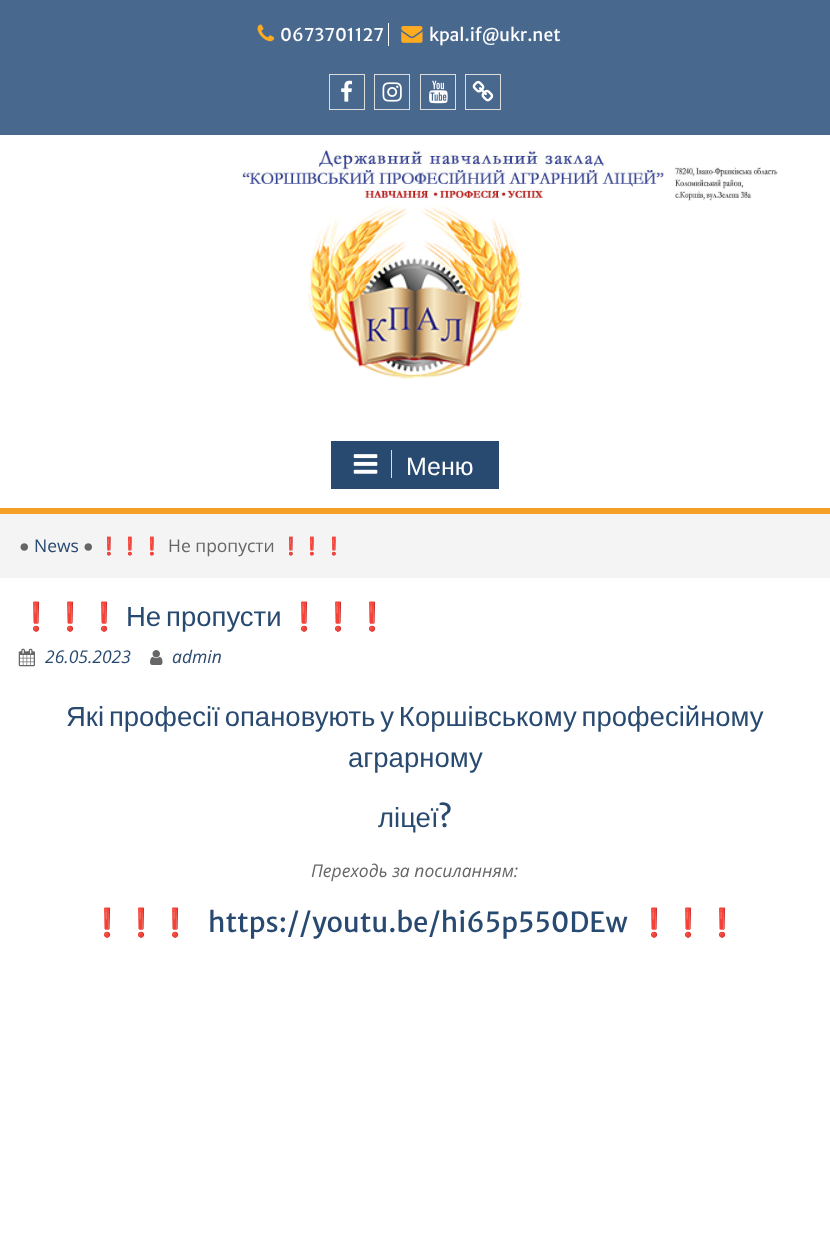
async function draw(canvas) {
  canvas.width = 830
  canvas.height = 1252
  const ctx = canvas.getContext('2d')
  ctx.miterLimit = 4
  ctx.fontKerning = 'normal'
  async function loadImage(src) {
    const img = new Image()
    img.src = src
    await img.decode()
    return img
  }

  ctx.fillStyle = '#fff'
  ctx.fillRect(0, 0, 830, 1252)
  ctx.fillStyle = '#49688e'
  ctx.fillRect(0, 0, 830, 135)
  ctx.drawImage(await loadImage('image0.png'), 257, 24, 18, 18)
  ctx.font = '17.5px Merriweather Sans'
  ctx.fillStyle = '#fff'
  ctx.fillText('0673701127', 280, 41)
  ctx.fillRect(388, 23, 1, 23)
  ctx.drawImage(await loadImage('image1.png'), 401, 26, 22, 17)
  ctx.fillText('kpal.if@ukr.net', 429, 41)
  ctx.strokeStyle = '#ddd'
  ctx.strokeRect(329.5, 74.5, 35, 35)
  ctx.drawImage(await loadImage('image2.png'), 341, 80, 12, 22)
  ctx.strokeRect(374.5, 74.5, 35, 35)
  ctx.drawImage(await loadImage('image3.png'), 382, 82, 20, 20)
  ctx.strokeRect(420.5, 74.5, 35, 35)
  ctx.drawImage(await loadImage('image4.png'), 429, 80, 19, 24)
  ctx.strokeRect(465.5, 74.5, 35, 35)
  ctx.drawImage(await loadImage('image5.png'), 472, 80, 22, 22)
  ctx.drawImage(await loadImage('image6.png'), 242, 149, 536, 52)
  ctx.drawImage(await loadImage('image7.png'), 308, 204, 214, 175)
  ctx.fillStyle = '#f4a024'
  ctx.fillRect(0, 508, 830, 6)
  ctx.fillStyle = '#294a70'
  ctx.fillRect(331, 441, 168, 48)
  ctx.fillStyle = '#ddd'
  ctx.fillRect(391, 450, 1, 28)
  ctx.drawImage(await loadImage('image8.png'), 353, 454, 25, 20)
  ctx.font = '25px Liberation Sans'
  ctx.fillStyle = '#fff'
  ctx.fillText('Меню', 406, 475)
  ctx.fillStyle = '#f4f4f4'
  ctx.fillRect(0, 514, 830, 64)
  ctx.font = '17.5px Liberation Sans'
  ctx.fillStyle = '#666'
  ctx.fillText('●', 19, 552)
  ctx.font = '17.5px Open Sans'
  ctx.fillStyle = '#294a70'
  ctx.fillText('News', 34, 552)
  ctx.font = '17.5px Liberation Sans'
  ctx.fillStyle = '#666'
  ctx.fillText('●', 83, 552)
  ctx.font = '17.5px Noto Color Emoji'
  ctx.fillText('❗️❗️❗️', 98, 552)
  ctx.font = '17.5px Open Sans'
  ctx.fillText('Не пропусти', 168, 552)
  ctx.font = '17.5px Noto Color Emoji'
  ctx.fillText('❗️❗️❗️', 280, 552)
  ctx.font = '27.5px Noto Color Emoji'
  ctx.fillStyle = '#294a70'
  ctx.fillText('❗️❗️❗️', 19, 626)
  ctx.wordSpacing = '-2.75px'
  ctx.font = '27.5px Liberation Sans'
  ctx.fillText('Не пропусти', 126, 626)
  ctx.wordSpacing = '0px'
  ctx.font = '27.5px Noto Color Emoji'
  ctx.fillText('❗️❗️❗️', 287, 626)
  ctx.drawImage(await loadImage('image9.png'), 18, 648, 17, 19)
  ctx.font = 'italic 17.5px Open Sans'
  ctx.fillText('26.05.2023', 45, 663)
  ctx.drawImage(await loadImage('image10.png'), 150, 650, 13, 15)
  ctx.fillText('admin', 172, 663)
  ctx.wordSpacing = '-2.75px'
  ctx.font = '27.5px Liberation Sans'
  ctx.fillText('Які професії опановують у Коршівському професійному', 66, 726)
  ctx.wordSpacing = '0px'
  ctx.fillText('аграрному', 348, 767)
  ctx.fillText('ліцеї', 378, 827)
  ctx.font = '27.5px Merriweather Sans'
  ctx.fillText('?', 438, 827)
  ctx.font = 'italic 17.5px Open Sans'
  ctx.fillStyle = '#666'
  ctx.fillText('Переходь за посиланням:', 311, 877)
  ctx.font = '27.5px Noto Color Emoji'
  ctx.fillStyle = '#294a70'
  ctx.fillText('❗️❗️❗️', 90, 932)
  ctx.font = '27.5px Merriweather Sans'
  ctx.fillText('https://youtu.be/hi65p550DEw', 208, 932)
  ctx.font = '27.5px Noto Color Emoji'
  ctx.fillText('❗️❗️❗️', 637, 932)
}

draw(document.querySelector('canvas'))
